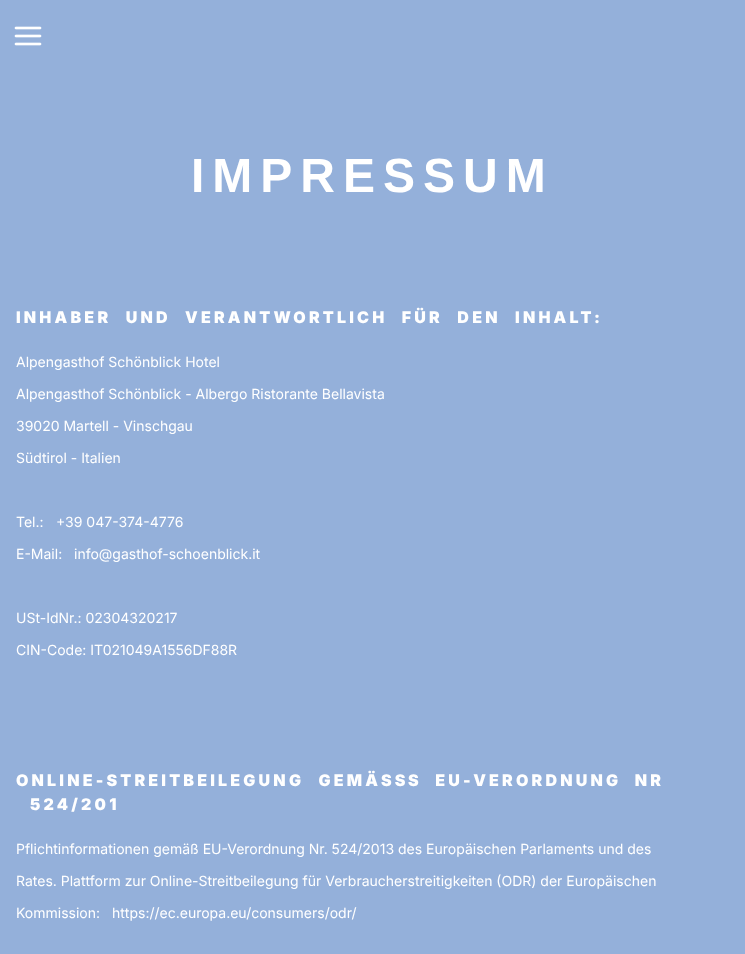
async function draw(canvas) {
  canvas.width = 745
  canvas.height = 954
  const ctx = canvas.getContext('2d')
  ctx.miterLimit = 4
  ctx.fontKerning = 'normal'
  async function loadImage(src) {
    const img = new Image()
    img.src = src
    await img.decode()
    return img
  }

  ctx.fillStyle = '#94b0da'
  ctx.fillRect(0, 0, 745, 954)
  ctx.drawImage(await loadImage('image0.png'), 14, 26, 28, 20)
  ctx.letterSpacing = '8px'
  ctx.font = 'bold 48px Liberation Sans'
  ctx.fillStyle = '#fff'
  ctx.fillText('IMPRESSUM', 191, 192)
  ctx.letterSpacing = '3.2px'
  ctx.wordSpacing = '8px'
  ctx.font = '900 16px Inter'
  ctx.fillText('INHABER UND VERANTWORTLICH FÜR DEN INHALT:', 16, 323)
  ctx.letterSpacing = '0px'
  ctx.wordSpacing = '0px'
  ctx.font = '14px Inter'
  ctx.fillText('Alpengasthof Schönblick Hotel', 16, 367)
  ctx.fillText('Alpengasthof Schönblick - Albergo Ristorante Bellavista', 16, 399)
  ctx.fillText('39020 Martell - Vinschgau', 16, 431)
  ctx.fillText('Südtirol - Italien', 16, 463)
  ctx.fillText('Tel.:', 16, 527)
  ctx.fillText('+39 047-374-4776', 56, 527)
  ctx.fillText('E-Mail:', 16, 559)
  ctx.fillText('info@gasthof-schoenblick.it', 74, 559)
  ctx.fillText('USt-IdNr.: 02304320217', 16, 623)
  ctx.fillText('CIN-Code: IT021049A1556DF88R', 16, 655)
  ctx.letterSpacing = '3.2px'
  ctx.wordSpacing = '8px'
  ctx.font = '900 16px Inter'
  ctx.fillText('ONLINE-STREITBEILEGUNG GEMÄ', 16, 786)
  ctx.wordSpacing = '0px'
  ctx.fillText('SS', 381, 786)
  ctx.wordSpacing = '7px'
  ctx.fillText('S EU-VERORDNUNG NR', 408, 786)
  ctx.wordSpacing = '0px'
  ctx.fillText('524/201', 30, 810)
  ctx.letterSpacing = '0px'
  ctx.font = '14px Inter'
  ctx.fillText('Pflichtinformationen gemäß EU-Verordnung Nr. 524/2013 des Europäischen Parlaments und des', 16, 854)
  ctx.fillText('Rates. Plattform zur Online-Streitbeilegung für Verbraucherstreitigkeiten (ODR) der Europäischen', 16, 886)
  ctx.fillText('Kommission:', 16, 918)
  ctx.fillText('https://ec.europa.eu/consumers/odr/', 112, 918)
}

draw(document.querySelector('canvas'))
